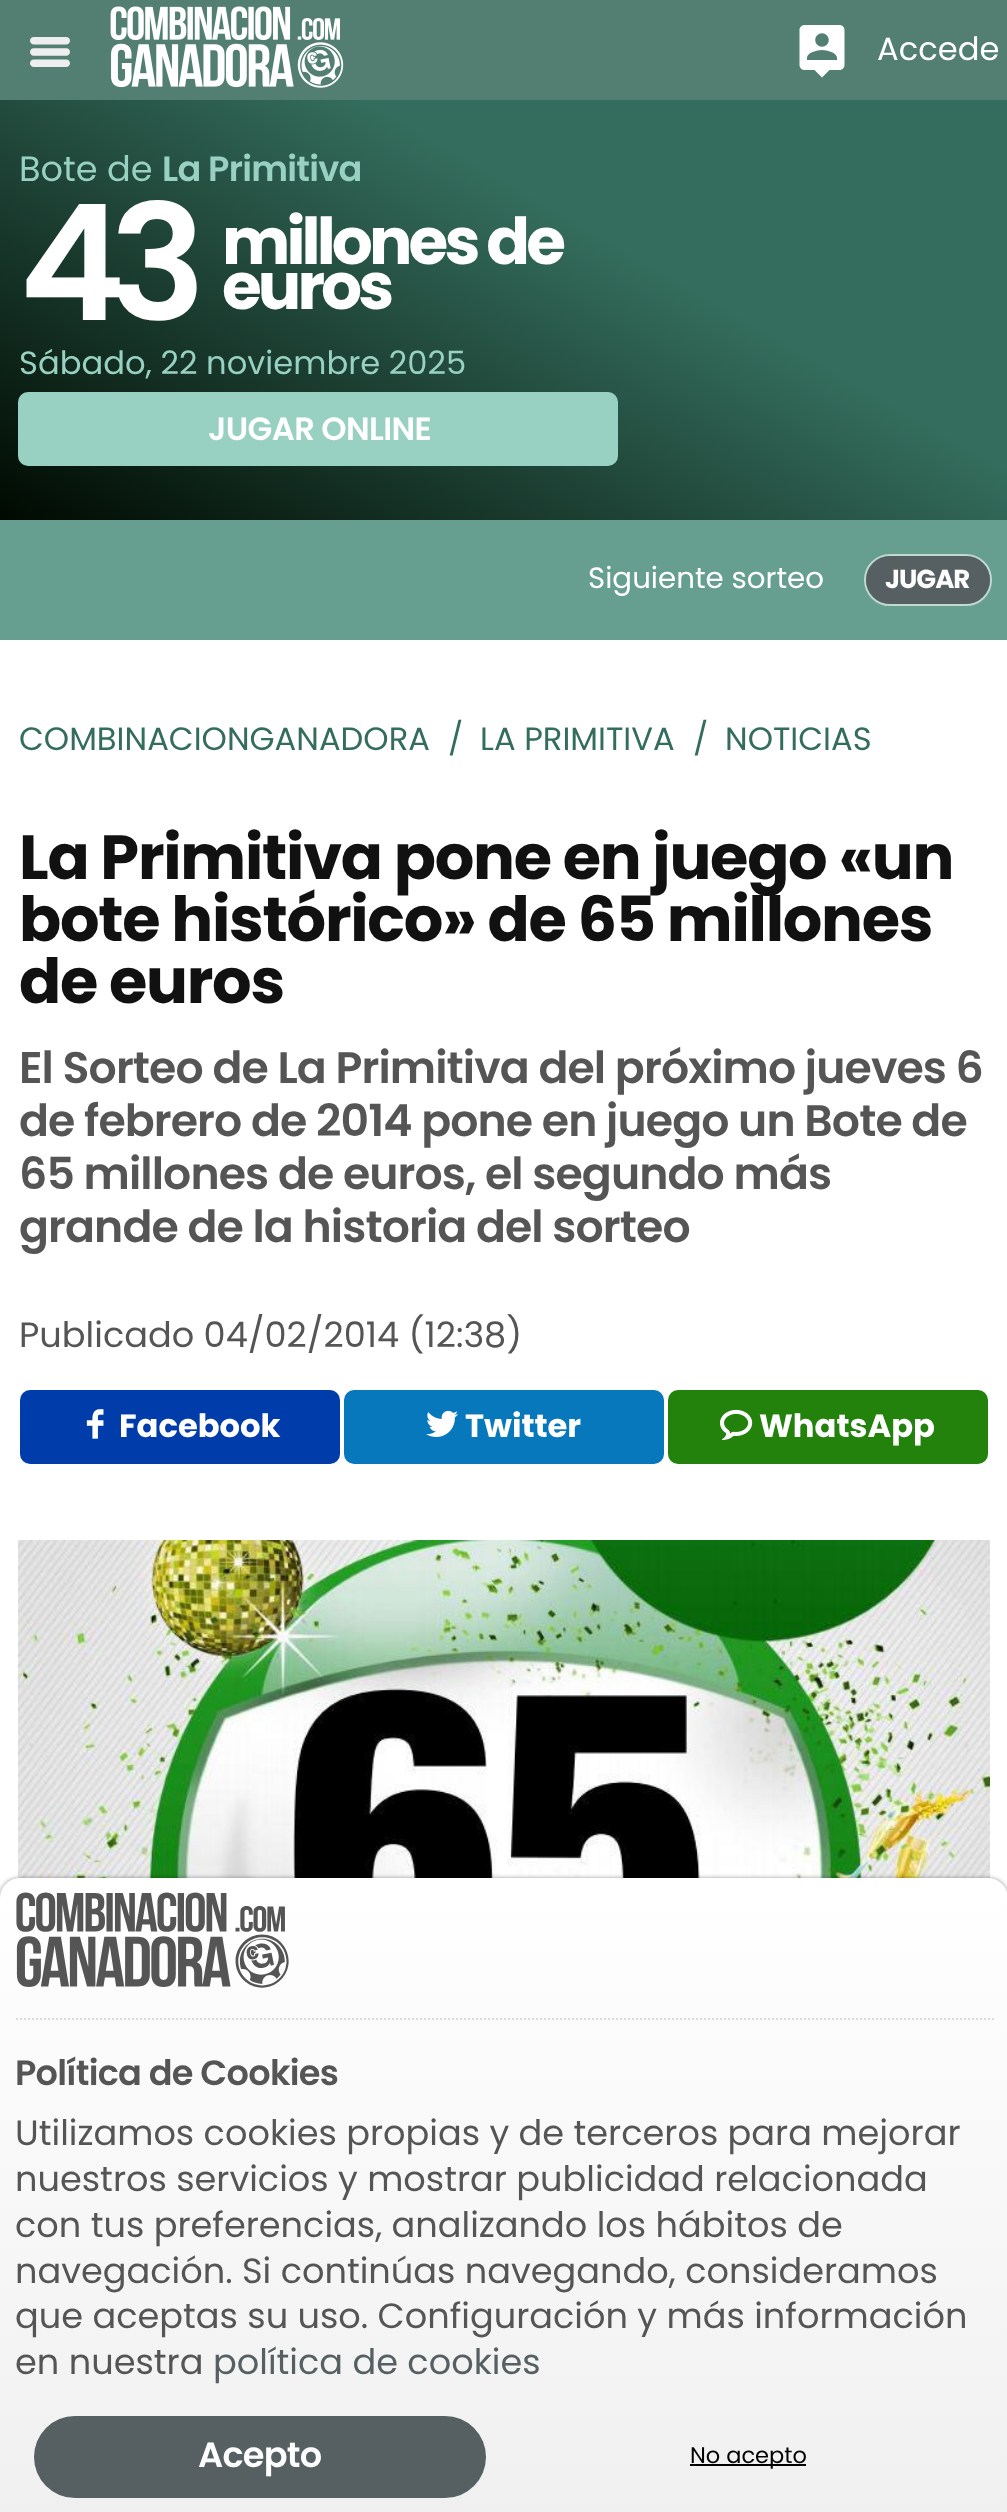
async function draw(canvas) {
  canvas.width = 1007
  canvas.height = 2512
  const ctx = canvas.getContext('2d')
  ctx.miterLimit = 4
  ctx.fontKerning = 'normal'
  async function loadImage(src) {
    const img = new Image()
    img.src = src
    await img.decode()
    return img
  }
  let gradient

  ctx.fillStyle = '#669f8f'
  ctx.fillRect(0, 0, 1007, 2512)
  ctx.fillStyle = '#527f72'
  ctx.fillRect(0, 0, 1007, 100)
  ctx.drawImage(await loadImage('image0.png'), 30, 37, 40, 30)
  ctx.drawImage(await loadImage('image1.png'), 110, 6, 234, 82)
  ctx.drawImage(await loadImage('image2.png'), 799, 25, 46, 53)
  ctx.font = '32.2px Poppins'
  ctx.fillStyle = '#fff'
  ctx.fillText('Accede', 877, 60)
  gradient = ctx.createLinearGradient(287, 686, 721, -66)
  gradient.addColorStop(0, '#000900')
  gradient.addColorStop(0.63, '#346d5d')
  ctx.fillStyle = gradient
  ctx.fillRect(0, 100, 1007, 420)
  ctx.font = '35.15px Poppins'
  ctx.fillStyle = '#98d1c1'
  ctx.fillText('Bote de', 19, 181)
  ctx.letterSpacing = '-0.75px'
  ctx.font = '600 35.15px Poppins'
  ctx.fillText('La Primitiva', 162, 181)
  ctx.letterSpacing = '-16px'
  ctx.font = '600 161px Poppins'
  ctx.fillStyle = '#fff'
  ctx.fillText('43', 19, 320)
  ctx.letterSpacing = '-3.9px'
  ctx.font = 'bold 64.5px Poppins'
  ctx.fillText('millones de', 222, 264)
  ctx.fillText('euros', 222, 309)
  ctx.letterSpacing = '0px'
  ctx.font = '32.2px Poppins'
  ctx.fillStyle = '#98d1c1'
  ctx.fillText('Sábado, 22 noviembre 2025', 19, 374)
  ctx.beginPath()
  ctx.roundRect(18, 392, 600, 74, 10)
  ctx.fill()
  ctx.letterSpacing = '-0.6px'
  ctx.font = '600 32.2px Poppins'
  ctx.fillStyle = '#fff'
  ctx.fillText('JUGAR ONLINE', 208, 440)
  ctx.letterSpacing = '0px'
  ctx.font = '29.25px Poppins'
  ctx.fillText('Siguiente sorteo', 588, 588)
  ctx.beginPath()
  ctx.roundRect(865, 555, 126, 50, 25)
  ctx.strokeStyle = '#c2d9d2'
  ctx.lineWidth = 2
  ctx.stroke()
  ctx.fillStyle = '#566063'
  ctx.beginPath()
  ctx.roundRect(866, 556, 124, 48, 24)
  ctx.fill()
  ctx.letterSpacing = '-1px'
  ctx.font = 'bold 26px Poppins'
  ctx.fillStyle = '#fff'
  ctx.fillText('JUGAR', 885, 588)
  ctx.fillRect(0, 640, 1007, 1258)
  ctx.letterSpacing = '0px'
  ctx.font = '32.2px Poppins'
  ctx.fillStyle = '#346d5d'
  ctx.fillText('COMBINACIONGANADORA', 19, 750)
  ctx.fillText('/', 448, 750)
  ctx.fillText('LA PRIMITIVA', 480, 750)
  ctx.fillText('/', 693, 750)
  ctx.fillText('NOTICIAS', 725, 750)
  ctx.letterSpacing = '-1.25px'
  ctx.font = 'bold 62.2px Poppins'
  ctx.fillStyle = '#111'
  ctx.fillText('La Primitiva pone en juego «un', 19, 879)
  ctx.fillText('bote histórico» de 65 millones', 19, 941)
  ctx.fillText('de euros', 19, 1003)
  ctx.letterSpacing = '-0.9px'
  ctx.font = '600 44.2px Poppins'
  ctx.fillStyle = '#555'
  ctx.fillText('El Sorteo de La Primitiva del próximo jueves 6', 19, 1083)
  ctx.fillText('de febrero de 2014 pone en juego un Bote de', 19, 1136)
  ctx.fillText('65 millones de euros, el segundo más', 19, 1189)
  ctx.fillText('grande de la historia del sorteo', 19, 1242)
  ctx.letterSpacing = '0px'
  ctx.font = '35.15px Poppins'
  ctx.fillText('Publicado 04/02/2014 (12:38)', 19, 1347)
  ctx.fillStyle = '#003dab'
  ctx.beginPath()
  ctx.roundRect(20, 1390, 320, 74, 10)
  ctx.fill()
  ctx.drawImage(await loadImage('image3.png'), 86, 1409, 18, 30)
  ctx.font = 'bold 32.2px Poppins'
  ctx.fillStyle = '#fff'
  ctx.fillText('Facebook', 119, 1437)
  ctx.fillStyle = '#0878bd'
  ctx.beginPath()
  ctx.roundRect(344, 1390, 320, 74, 10)
  ctx.fill()
  ctx.drawImage(await loadImage('image4.png'), 426, 1410, 32, 27)
  ctx.fillStyle = '#fff'
  ctx.fillText('Twitter', 465, 1437)
  ctx.fillStyle = '#23820c'
  ctx.beginPath()
  ctx.roundRect(668, 1390, 320, 74, 10)
  ctx.fill()
  ctx.drawImage(await loadImage('image5.png'), 720, 1409, 33, 31)
  ctx.fillStyle = '#fff'
  ctx.fillText('WhatsApp', 759, 1437)
  ctx.drawImage(await loadImage('image6.png'), 18, 1540, 972, 339)
  ctx.fillStyle = '#00000066'
  ctx.filter = 'blur(2px)'
  ctx.beginPath()
  ctx.roundRect(0, 1878, 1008, 634, 20)
  ctx.fill()
  ctx.filter = 'none'
  gradient = ctx.createLinearGradient(504, 1878, 504, 2512)
  gradient.addColorStop(0, '#fff')
  gradient.addColorStop(1, '#f0f0f0')
  ctx.fillStyle = gradient
  ctx.beginPath()
  ctx.moveTo(20, 1878)
  ctx.lineTo(988, 1878)
  ctx.bezierCurveTo(999, 1878, 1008, 1887, 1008, 1898)
  ctx.lineTo(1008, 2512)
  ctx.lineTo(0, 2512)
  ctx.lineTo(0, 1898)
  ctx.bezierCurveTo(0, 1887, 9, 1878, 20, 1878)
  ctx.closePath()
  ctx.fill()
  ctx.beginPath()
  ctx.moveTo(16, 2019)
  ctx.lineTo(994, 2019)
  ctx.strokeStyle = '#dbdbdb'
  ctx.setLineDash([2, 2])
  ctx.stroke()
  ctx.drawImage(await loadImage('image7.png'), 16, 1892, 273, 96)
  ctx.letterSpacing = '-0.75px'
  ctx.font = '600 35.15px Poppins'
  ctx.fillStyle = '#555'
  ctx.fillText('Política de Cookies', 15, 2085)
  ctx.letterSpacing = '0px'
  ctx.font = '35.15px Poppins'
  ctx.fillText('Utilizamos cookies propias y de terceros para mejorar', 15, 2145)
  ctx.fillText('nuestros servicios y mostrar publicidad relacionada', 15, 2191)
  ctx.fillText('con tus preferencias, analizando los hábitos de', 15, 2237)
  ctx.fillText('navegación. Si continúas navegando, consideramos', 15, 2283)
  ctx.fillText('que aceptas su uso. Configuración y más información', 15, 2328)
  ctx.fillText('en nuestra', 15, 2374)
  ctx.fillStyle = '#566063'
  ctx.fillText('política de cookies', 213, 2374)
  ctx.beginPath()
  ctx.roundRect(34, 2416, 452, 82, 41)
  ctx.fill()
  ctx.letterSpacing = '-0.75px'
  ctx.font = '600 35.15px Poppins'
  ctx.fillStyle = '#fff'
  ctx.fillText('Acepto', 198, 2467)
  ctx.fillStyle = '#000'
  ctx.fillRect(690, 2464, 116, 2)
  ctx.letterSpacing = '0px'
  ctx.font = '22.5px Poppins'
  ctx.fillText('No acepto', 690, 2463)
}

draw(document.querySelector('canvas'))
